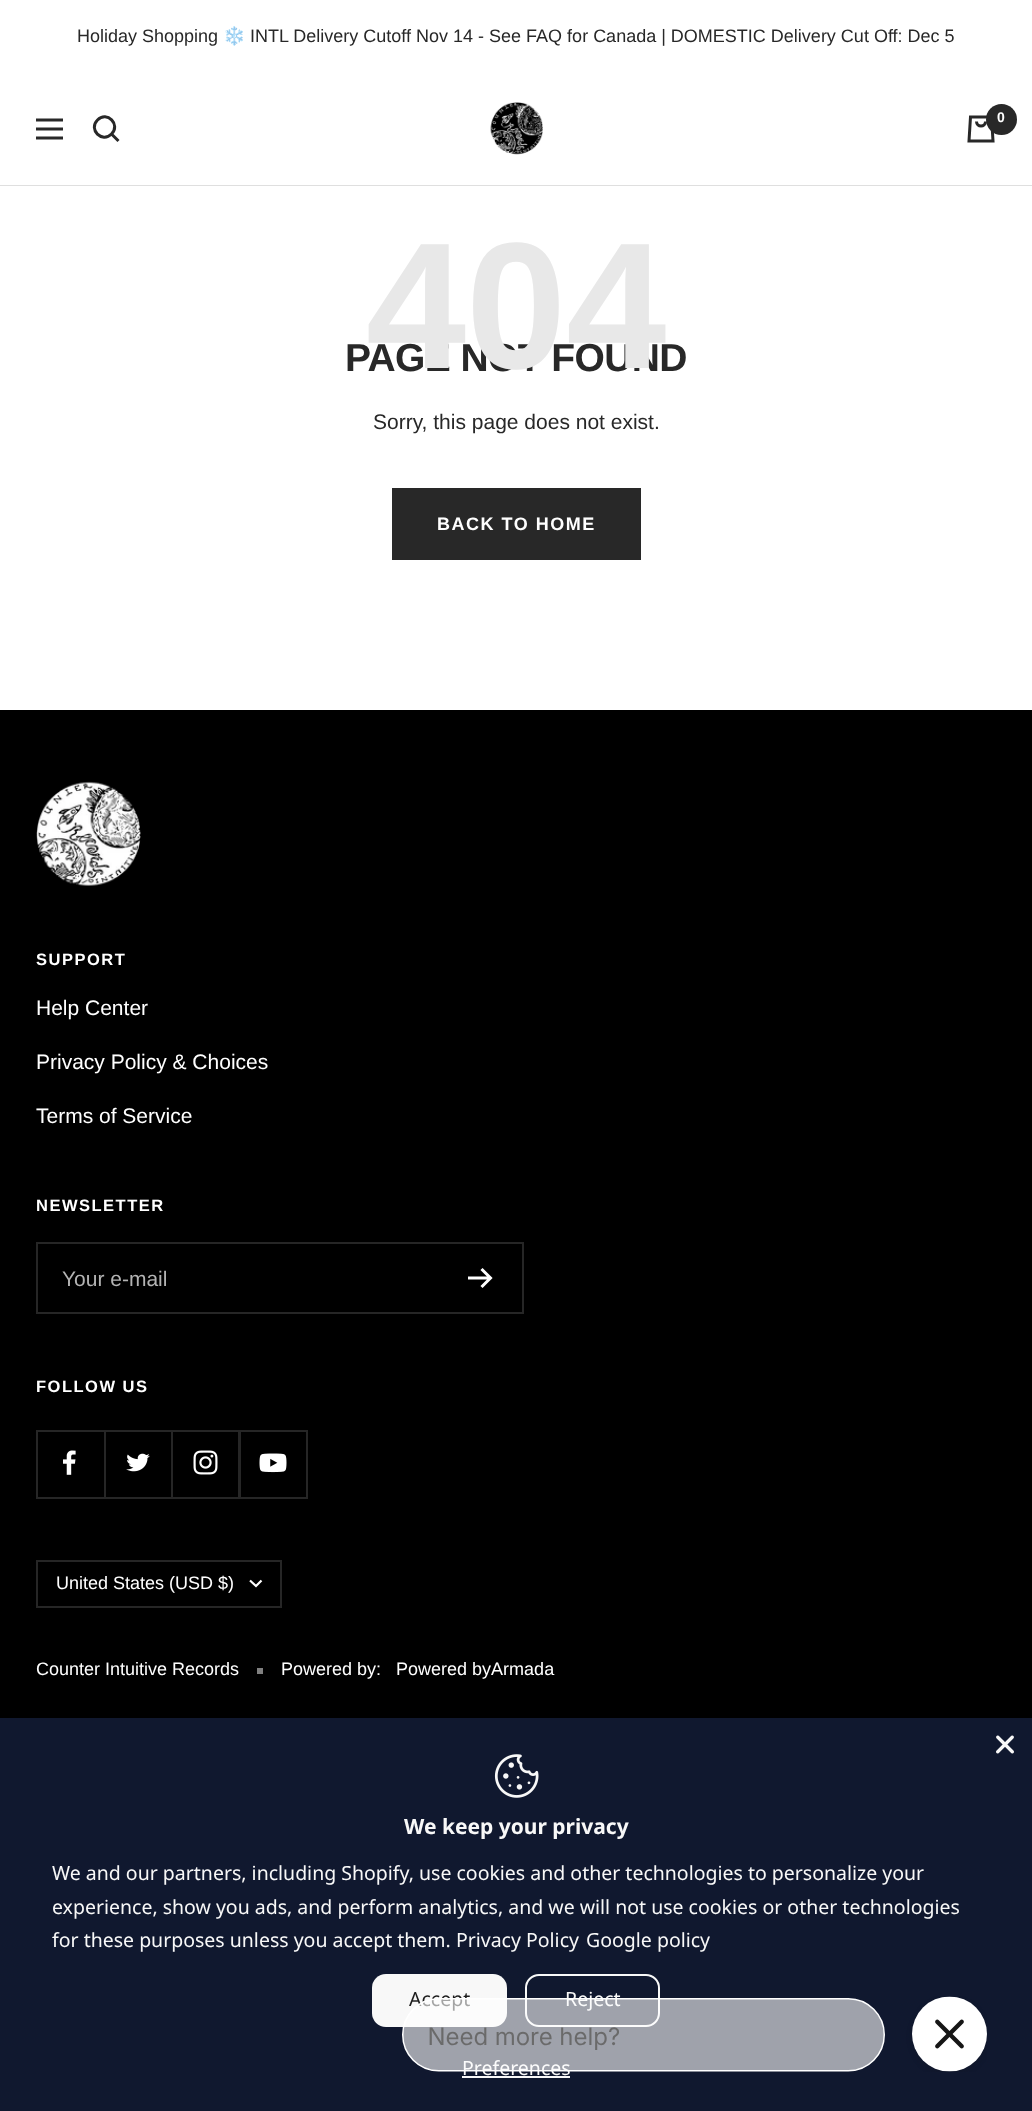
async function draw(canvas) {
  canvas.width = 1032
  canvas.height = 2111
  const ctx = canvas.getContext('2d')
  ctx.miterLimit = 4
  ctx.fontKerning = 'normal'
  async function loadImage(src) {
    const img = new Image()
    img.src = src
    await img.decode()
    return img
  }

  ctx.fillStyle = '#fff'
  ctx.fillRect(0, 0, 1032, 2111)
  ctx.font = '18px Liberation Sans'
  ctx.fillStyle = '#282828'
  ctx.fillText('Holiday Shopping', 77, 42)
  ctx.font = '18px Noto Color Emoji'
  ctx.fillText('❄️', 223, 42)
  ctx.font = '18px Liberation Sans'
  ctx.fillText('INTL Delivery Cutoff Nov 14 - See FAQ for Canada | DOMESTIC Delivery Cut Off: Dec 5', 250, 42)
  ctx.fillStyle = '#dfdfdf'
  ctx.fillRect(0, 185, 1032, 1)
  ctx.beginPath()
  ctx.moveTo(36, 120)
  ctx.lineTo(63, 120)
  ctx.moveTo(36, 138)
  ctx.lineTo(63, 138)
  ctx.closePath()
  ctx.moveTo(36, 129)
  ctx.lineTo(63, 129)
  ctx.closePath()
  ctx.strokeStyle = '#282828'
  ctx.lineWidth = 3
  ctx.stroke()
  ctx.beginPath()
  ctx.moveTo(111.5, 134)
  ctx.bezierCurveTo(121, 124.5, 107, 110.5, 97.5, 120)
  ctx.bezierCurveTo(88, 129.5, 102, 143.5, 111.5, 134)
  ctx.closePath()
  ctx.moveTo(111.5, 134)
  ctx.lineTo(118.5, 141)
  ctx.stroke()
  ctx.drawImage(await loadImage('image0.png'), 490, 102, 53, 53)
  ctx.beginPath()
  ctx.moveTo(970.5, 117)
  ctx.lineTo(991.5, 117)
  ctx.lineTo(993, 141)
  ctx.lineTo(969, 141)
  ctx.closePath()
  ctx.moveTo(976.5, 121.5)
  ctx.bezierCurveTo(976.5, 127.5, 985.5, 127.5, 985.5, 121.5)
  ctx.stroke()
  ctx.fillStyle = '#282828'
  ctx.beginPath()
  ctx.arc(1001.5, 119.5, 15.5, 0, 2 * Math.PI)
  ctx.fill()
  ctx.font = 'bold 14px Liberation Sans'
  ctx.fillStyle = '#fff'
  ctx.fillText('0', 997, 122)
  ctx.letterSpacing = '-0.6px'
  ctx.font = 'bold 39px Liberation Sans'
  ctx.fillStyle = '#282828'
  ctx.fillText('PAGE NOT FOUND', 345, 371)
  ctx.letterSpacing = '0px'
  ctx.font = 'bold 180px Liberation Sans'
  ctx.fillStyle = '#e8e8e8'
  ctx.fillText('404', 366, 368)
  ctx.font = '21px Liberation Sans'
  ctx.fillStyle = '#282828'
  ctx.fillText('Sorry, this page does not exist.', 373, 429)
  ctx.fillRect(392, 488, 249, 72)
  ctx.letterSpacing = '1.5px'
  ctx.font = 'bold 18px Liberation Sans'
  ctx.fillStyle = '#fff'
  ctx.fillText('BACK TO HOME', 437, 530)
  ctx.fillStyle = '#000'
  ctx.fillRect(0, 710, 1032, 1008)
  ctx.drawImage(await loadImage('image1.png'), 36, 781, 105, 105)
  ctx.font = 'bold 16.5px Liberation Sans'
  ctx.fillStyle = '#fff'
  ctx.fillText('SUPPORT', 36, 965)
  ctx.letterSpacing = '0px'
  ctx.font = '21px Liberation Sans'
  ctx.fillText('Help Center', 36, 1015)
  ctx.fillText('Privacy Policy & Choices', 36, 1069)
  ctx.fillText('Terms of Service', 36, 1123)
  ctx.letterSpacing = '1.5px'
  ctx.font = 'bold 16.5px Liberation Sans'
  ctx.fillText('NEWSLETTER', 36, 1211)
  ctx.strokeStyle = '#262626'
  ctx.lineWidth = 2
  ctx.strokeRect(37, 1243, 486, 70)
  ctx.letterSpacing = '0px'
  ctx.font = '21px Liberation Sans'
  ctx.fillStyle = '#b3b3b3'
  ctx.fillText('Your e-mail', 62, 1286)
  ctx.beginPath()
  ctx.moveTo(468, 1278)
  ctx.lineTo(490.5, 1278)
  ctx.moveTo(481.5, 1269)
  ctx.lineTo(490.5, 1278)
  ctx.lineTo(481.5, 1287)
  ctx.strokeStyle = '#fff'
  ctx.lineWidth = 3
  ctx.stroke()
  ctx.letterSpacing = '1.5px'
  ctx.font = 'bold 16.5px Liberation Sans'
  ctx.fillStyle = '#fff'
  ctx.fillText('FOLLOW US', 36, 1392)
  ctx.fillStyle = '#262626'
  ctx.beginPath()
  ctx.moveTo(38, 1497)
  ctx.lineTo(38, 1499)
  ctx.lineTo(105, 1499)
  ctx.lineTo(105, 1431)
  ctx.lineTo(104, 1431)
  ctx.lineTo(104, 1497)
  ctx.closePath()
  ctx.fill()
  ctx.beginPath()
  ctx.moveTo(36, 1497)
  ctx.lineTo(36, 1499)
  ctx.lineTo(104, 1499)
  ctx.lineTo(104, 1431)
  ctx.lineTo(104, 1497)
  ctx.closePath()
  ctx.fill()
  ctx.fillRect(36, 1430, 68, 2)
  ctx.fillRect(36, 1430, 2, 67)
  ctx.drawImage(await loadImage('image2.png'), 63, 1450, 13, 25)
  ctx.beginPath()
  ctx.moveTo(105, 1497)
  ctx.lineTo(105, 1499)
  ctx.lineTo(173, 1499)
  ctx.lineTo(173, 1431)
  ctx.lineTo(171, 1431)
  ctx.lineTo(171, 1497)
  ctx.closePath()
  ctx.fill()
  ctx.fillRect(171, 1430, 2, 1)
  ctx.fillRect(104, 1430, 67, 2)
  ctx.fillRect(105, 1430, 1, 67)
  ctx.drawImage(await loadImage('image3.png'), 126, 1453, 24, 19)
  ctx.beginPath()
  ctx.moveTo(173, 1497)
  ctx.lineTo(173, 1499)
  ctx.lineTo(240, 1499)
  ctx.lineTo(240, 1431)
  ctx.lineTo(238, 1431)
  ctx.lineTo(238, 1497)
  ctx.closePath()
  ctx.fill()
  ctx.fillRect(238, 1430, 1, 1)
  ctx.fillRect(171, 1430, 68, 2)
  ctx.drawImage(await loadImage('image4.png'), 193, 1450, 25, 25)
  ctx.beginPath()
  ctx.moveTo(240, 1497)
  ctx.lineTo(240, 1499)
  ctx.lineTo(308, 1499)
  ctx.lineTo(308, 1431)
  ctx.lineTo(306, 1431)
  ctx.lineTo(306, 1497)
  ctx.closePath()
  ctx.fill()
  ctx.fillRect(306, 1430, 2, 1)
  ctx.fillRect(239, 1430, 67, 2)
  ctx.fillRect(240, 1430, 1, 67)
  ctx.drawImage(await loadImage('image5.png'), 259, 1453, 28, 20)
  ctx.strokeStyle = '#262626'
  ctx.lineWidth = 2
  ctx.strokeRect(37, 1561, 244, 46)
  ctx.letterSpacing = '0px'
  ctx.font = '18px Liberation Sans'
  ctx.fillStyle = '#fff'
  ctx.fillText('United States (USD $)', 56, 1589)
  ctx.beginPath()
  ctx.moveTo(250, 1580.5)
  ctx.lineTo(256, 1586)
  ctx.lineTo(261.5, 1580.5)
  ctx.strokeStyle = '#fff'
  ctx.lineWidth = 2.2
  ctx.stroke()
  ctx.fillText('Counter Intuitive Records', 36, 1675)
  ctx.fillStyle = '#808080'
  ctx.fillRect(257, 1668, 6, 6)
  ctx.fillStyle = '#fff'
  ctx.fillText('Powered by:   Powered byArmada', 281, 1675)
  ctx.fillStyle = '#10182f'
  ctx.fillRect(0, 1718, 1032, 393)
  ctx.drawImage(await loadImage('image6.png'), 996, 1735, 18, 19)
  ctx.drawImage(await loadImage('image7.png'), 494, 1754, 45, 44)
  ctx.font = 'bold 21px Noto Sans'
  ctx.fillStyle = '#f8f8f8'
  ctx.fillText('We keep your privacy', 404, 1834)
  ctx.font = '19.5px Noto Sans'
  ctx.fillText('We and our partners, including Shopify, use cookies and other technologies to personalize your', 52, 1880)
  ctx.fillText('experience, show you ads, and perform analytics, and we will not use cookies or other technologies', 52, 1914)
  ctx.fillText('for these purposes unless you accept them. Privacy Policy', 52, 1947)
  ctx.fillText('Google policy', 586, 1947)
  ctx.beginPath()
  ctx.roundRect(372, 1974, 135, 53, 14)
  ctx.fill()
  ctx.fillStyle = '#1d1d1d'
  ctx.fillText('Accept', 409, 2006)
  ctx.beginPath()
  ctx.roundRect(526, 1975, 133, 51, 13)
  ctx.strokeStyle = '#f8f8f8'
  ctx.lineWidth = 2
  ctx.stroke()
  ctx.fillStyle = '#f8f8f8'
  ctx.fillText('Reject', 565, 2006)
  ctx.fillText('Preferences', 462, 2075)
  ctx.fillRect(462, 2076, 108, 2)
  ctx.drawImage(await loadImage('image8.png'), 402, 1996, 585, 76)
}

draw(document.querySelector('canvas'))
